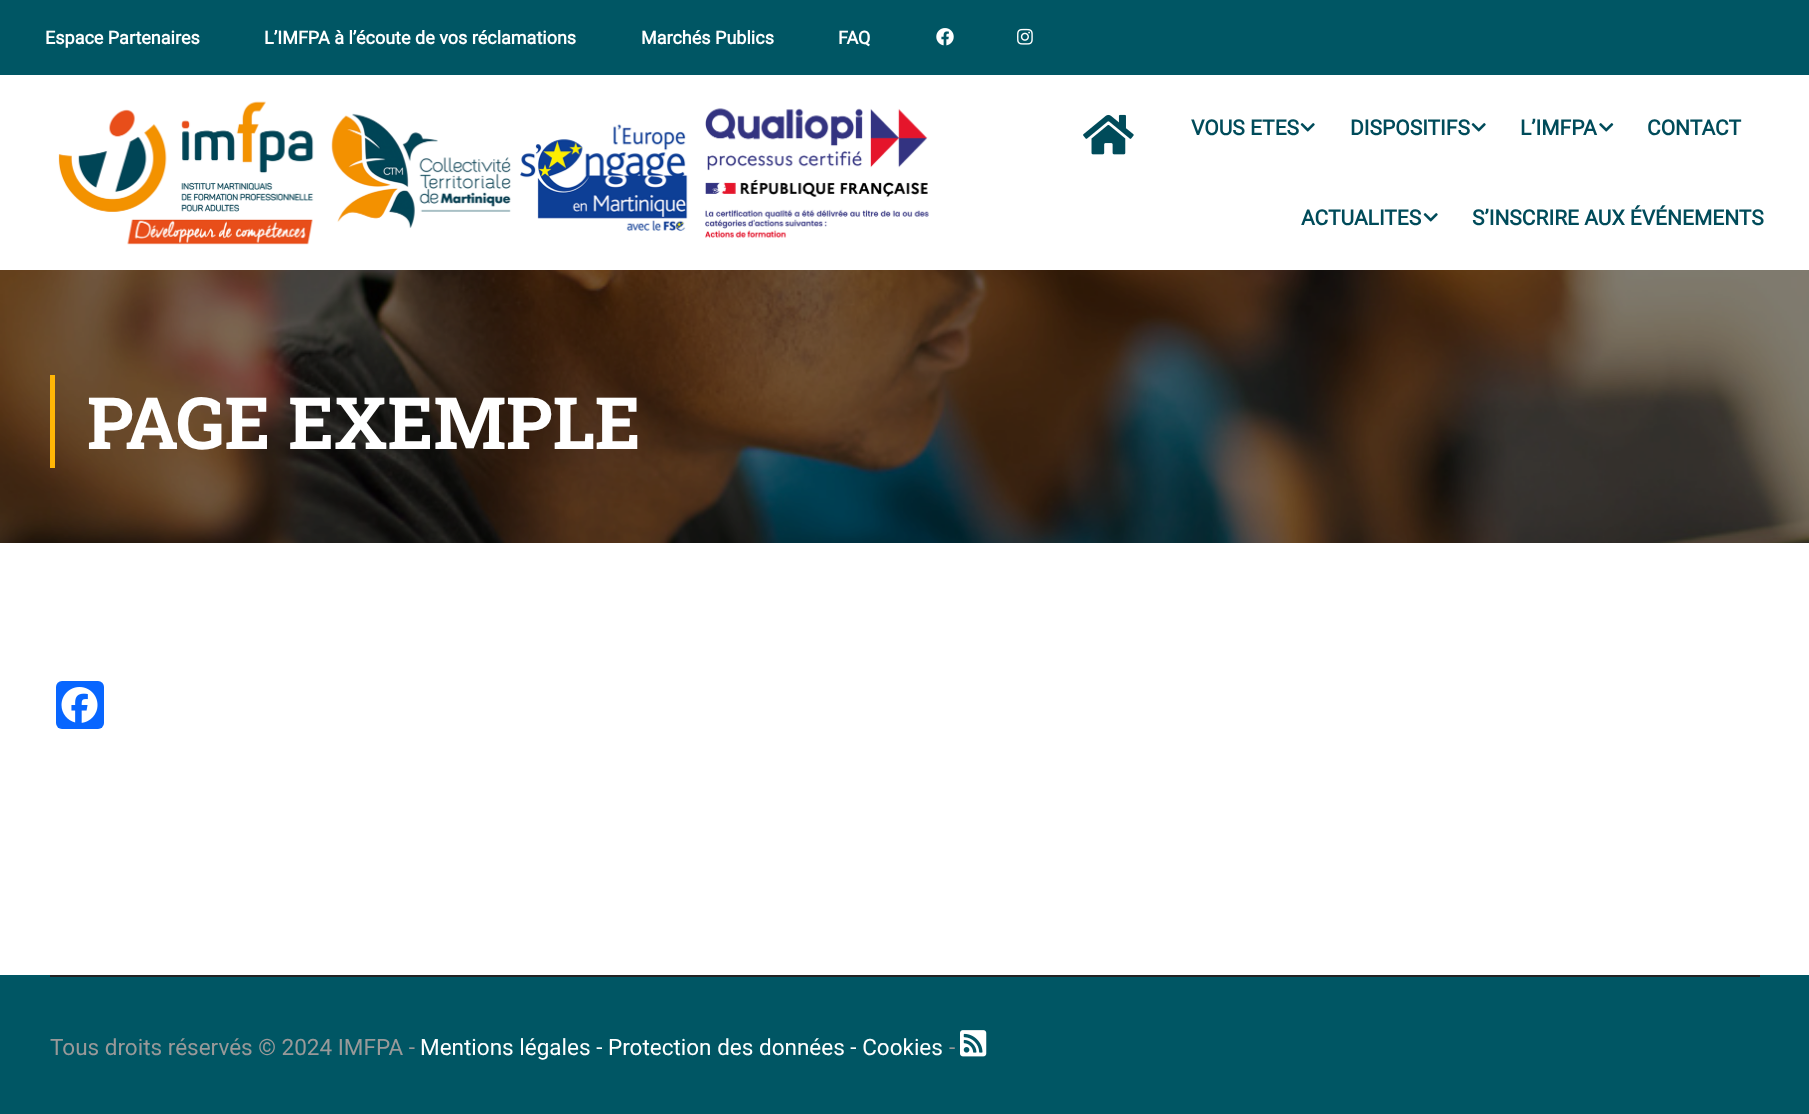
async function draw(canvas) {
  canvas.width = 1809
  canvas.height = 1114
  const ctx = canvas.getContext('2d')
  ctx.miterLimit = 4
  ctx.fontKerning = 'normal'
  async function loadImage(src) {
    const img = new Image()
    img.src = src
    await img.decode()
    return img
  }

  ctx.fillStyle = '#fff'
  ctx.fillRect(0, 0, 1809, 1114)
  ctx.fillStyle = '#005664'
  ctx.fillRect(0, 0, 1809, 75)
  ctx.font = 'bold 18px Roboto'
  ctx.fillStyle = '#fff'
  ctx.fillText('Espace Partenaires', 45, 44)
  ctx.fillText('L’IMFPA à l’écoute de vos réclamations', 264, 44)
  ctx.fillText('Marchés Publics', 641, 44)
  ctx.fillText('FAQ', 838, 44)
  ctx.drawImage(await loadImage('image0.png'), 936, 28, 18, 18)
  ctx.drawImage(await loadImage('image1.png'), 1017, 28, 16, 17)
  ctx.drawImage(await loadImage('image2.png'), 58, 101, 871, 144)
  ctx.drawImage(await loadImage('image3.png'), 1083, 114, 51, 41)
  ctx.font = 'bold 21px Roboto'
  ctx.fillStyle = '#004b5a'
  ctx.fillText('VOUS ETES', 1191, 135)
  ctx.drawImage(await loadImage('image4.png'), 1300, 123, 15, 9)
  ctx.fillText('DISPOSITIFS', 1350, 135)
  ctx.drawImage(await loadImage('image4.png'), 1471, 123, 15, 9)
  ctx.fillText('L’IMFPA', 1520, 135)
  ctx.drawImage(await loadImage('image5.png'), 1599, 123, 15, 9)
  ctx.fillText('CONTACT', 1647, 135)
  ctx.fillText('ACTUALITES', 1301, 225)
  ctx.drawImage(await loadImage('image4.png'), 1423, 213, 15, 9)
  ctx.fillText('S’INSCRIRE AUX ÉVÉNEMENTS', 1472, 225)
  ctx.drawImage(await loadImage('image6.png'), 0, 270, 1809, 273)
  ctx.fillStyle = '#ffb606'
  ctx.fillRect(50, 375, 5, 93)
  ctx.font = 'bold 72px Roboto Slab'
  ctx.fillStyle = '#fff'
  ctx.fillText('PAGE EXEMPLE', 87, 449)
  ctx.fillStyle = '#0866ff'
  ctx.beginPath()
  ctx.roundRect(56, 681, 48, 48, 6)
  ctx.fill()
  ctx.drawImage(await loadImage('image7.png'), 61, 687, 37, 36)
  ctx.fillStyle = '#005664'
  ctx.fillRect(0, 975, 1809, 139)
  ctx.fillStyle = '#222'
  ctx.fillRect(50, 975, 1710, 2)
  ctx.font = '22.5px Roboto'
  ctx.fillStyle = '#999'
  ctx.fillText('Tous droits réservés © 2024 IMFPA -', 50, 1055)
  ctx.fillStyle = '#fff'
  ctx.fillText('Mentions légales - Protection des données - Cookies', 420, 1055)
  ctx.fillStyle = '#999'
  ctx.fillText('-', 949, 1055)
  ctx.drawImage(await loadImage('image8.png'), 960, 1030, 27, 27)
}

draw(document.querySelector('canvas'))
